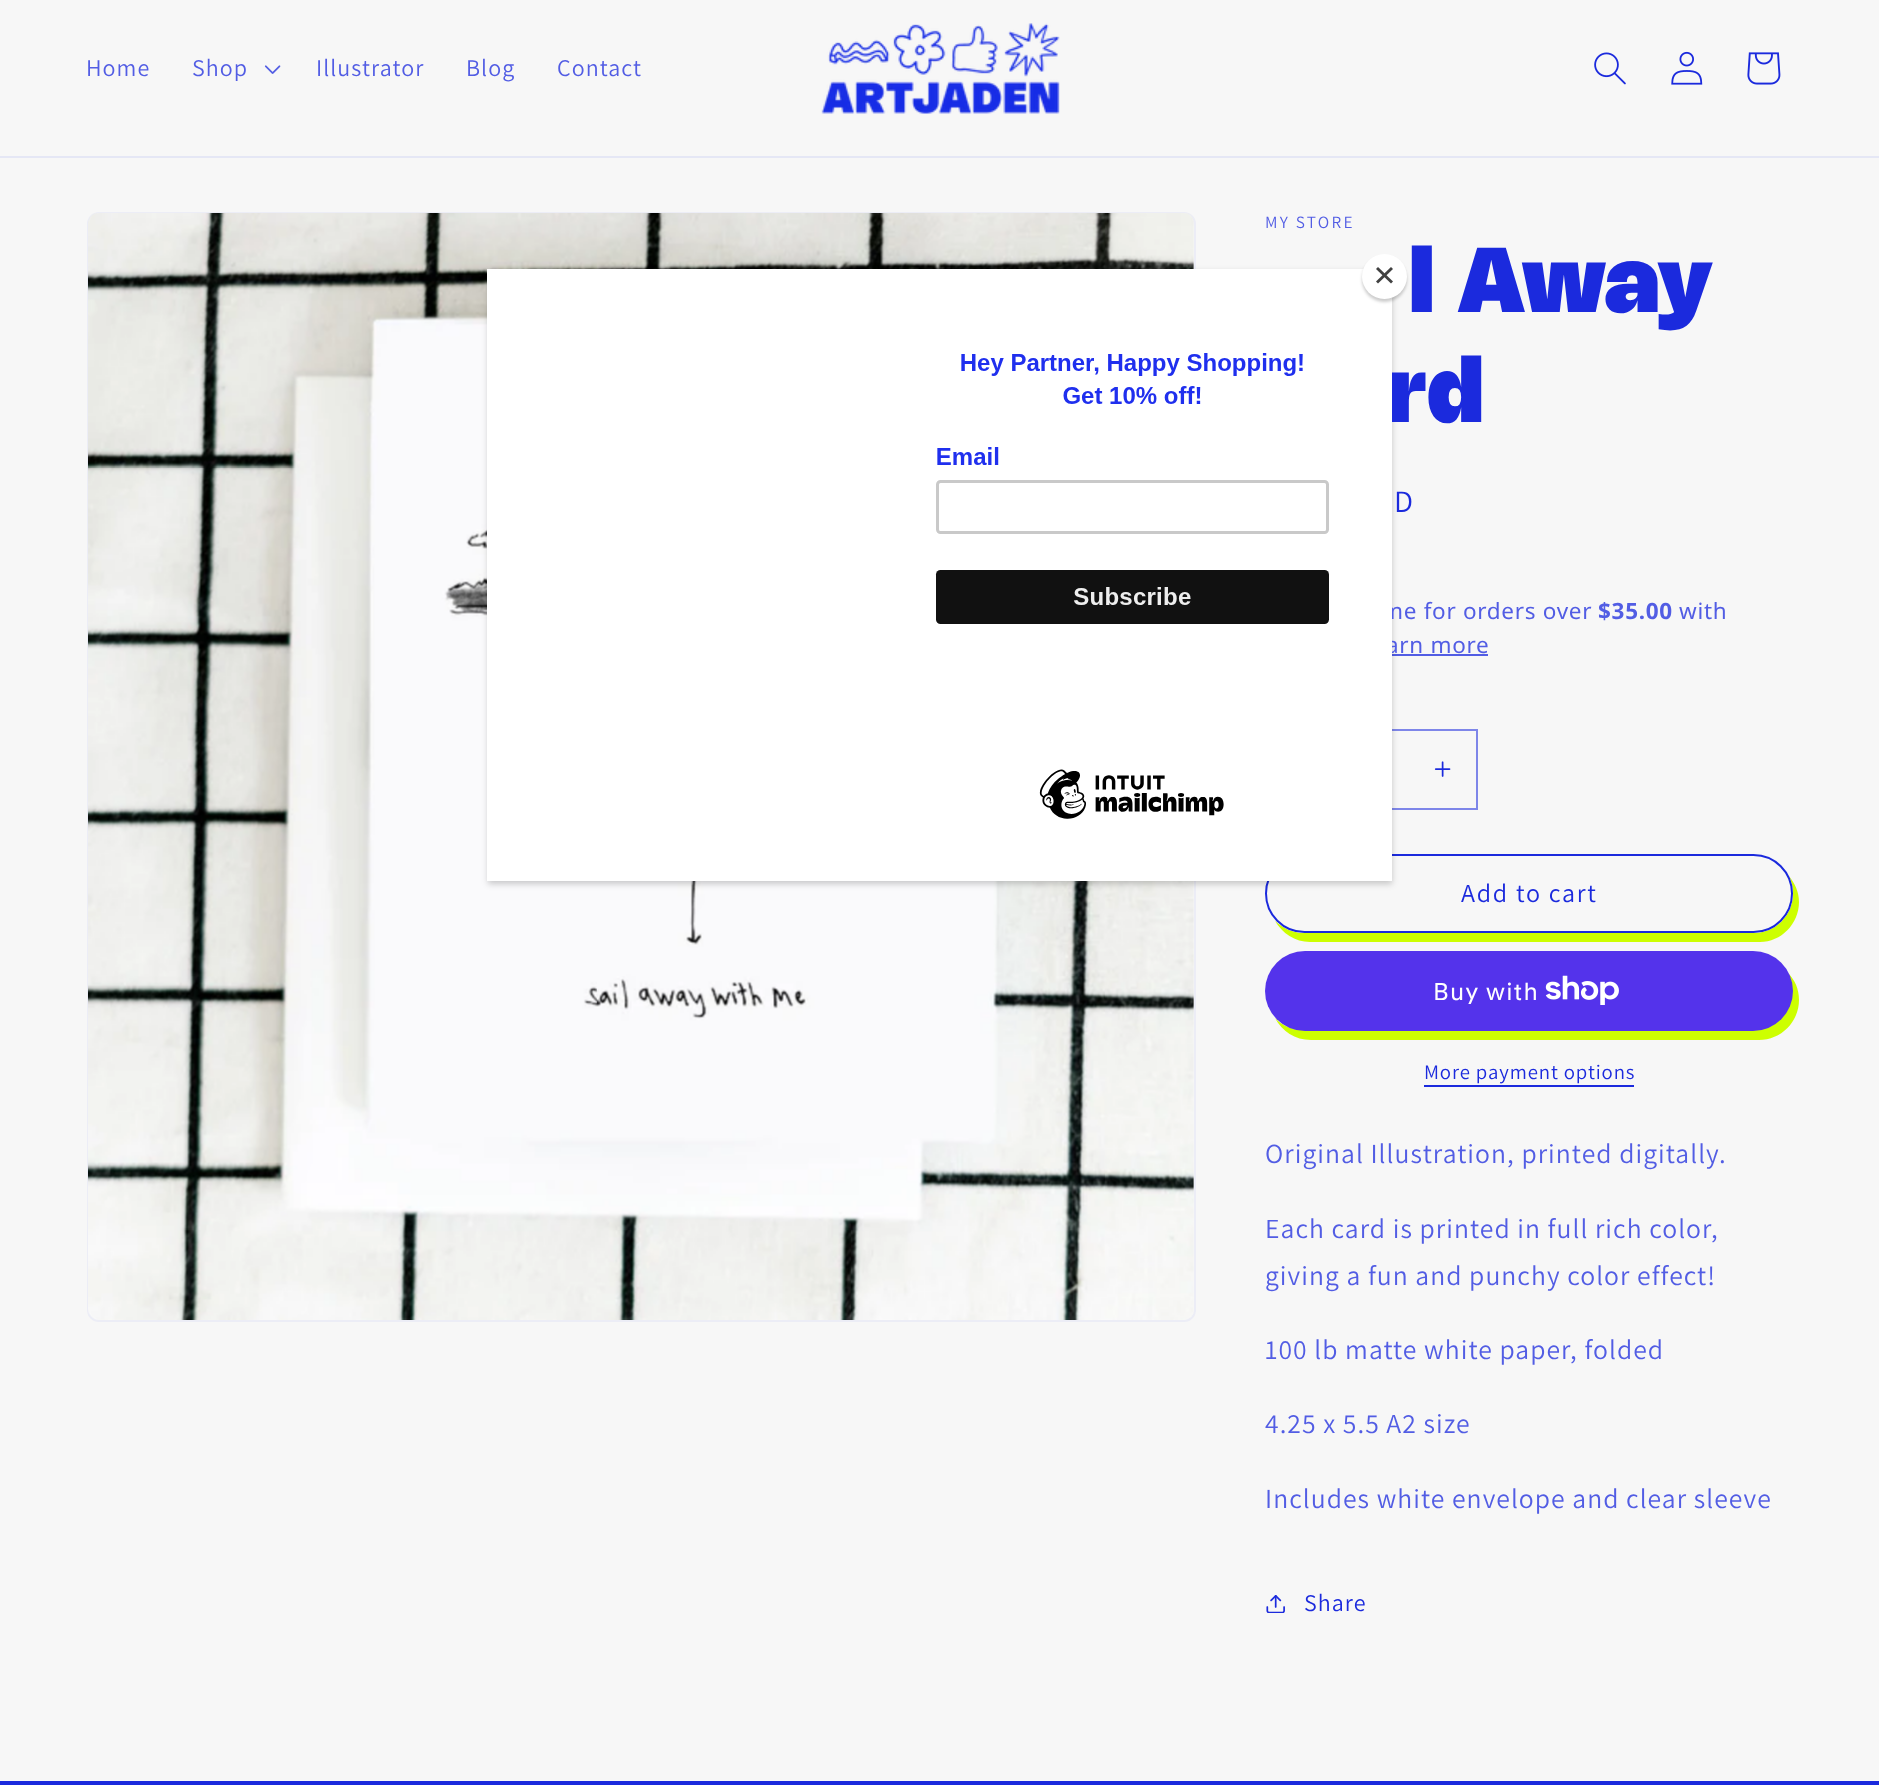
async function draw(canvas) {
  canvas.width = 1879
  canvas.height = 1785
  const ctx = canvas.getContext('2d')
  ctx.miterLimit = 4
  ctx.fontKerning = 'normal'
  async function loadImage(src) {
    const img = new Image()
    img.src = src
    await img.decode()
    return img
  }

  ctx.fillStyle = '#f7f7f7'
  ctx.fillRect(0, 0, 1879, 1785)
  ctx.fillStyle = '#e5e7f5'
  ctx.fillRect(0, 156, 1879, 2)
  ctx.letterSpacing = '1.05px'
  ctx.font = '24px Assistant'
  ctx.fillStyle = '#525de4'
  ctx.fillText('Home', 86, 76)
  ctx.fillText('Shop', 192, 76)
  ctx.drawImage(await loadImage('image0.png'), 264, 65, 17, 9)
  ctx.fillText('Illustrator', 316, 76)
  ctx.fillText('Blog', 466, 76)
  ctx.fillText('Contact', 557, 76)
  ctx.drawImage(await loadImage('image1.png'), 821, 23, 239, 91)
  ctx.drawImage(await loadImage('image2.png'), 1594, 52, 32, 33)
  ctx.drawImage(await loadImage('image3.png'), 1671, 51, 32, 34)
  ctx.drawImage(await loadImage('image4.png'), 1747, 52, 34, 33)
  ctx.beginPath()
  ctx.roundRect(88, 213, 1107, 1108, 11)
  ctx.strokeStyle = '#ecedf6'
  ctx.lineWidth = 2
  ctx.stroke()
  ctx.drawImage(await loadImage('image6.png'), 88, 213, 1106, 1107)
  ctx.fillRect(1392, 654, 96, 2)
  ctx.drawImage(await loadImage('image7.png'), 1434, 761, 17, 16)
  ctx.strokeStyle = '#7e86e9'
  ctx.strokeRect(1266, 730, 211, 79)
  ctx.fillStyle = '#cdff00'
  ctx.beginPath()
  ctx.moveTo(1275, 921)
  ctx.bezierCurveTo(1282, 933, 1295, 942, 1310, 942)
  ctx.lineTo(1760, 942)
  ctx.bezierCurveTo(1781, 942, 1799, 924, 1799, 902)
  ctx.bezierCurveTo(1799, 892, 1795, 883, 1788, 875)
  ctx.bezierCurveTo(1791, 881, 1792, 887, 1792, 893)
  ctx.bezierCurveTo(1792, 915, 1775, 933, 1753, 933)
  ctx.lineTo(1304, 933)
  ctx.bezierCurveTo(1293, 933, 1283, 928, 1275, 921)
  ctx.closePath()
  ctx.fill()
  ctx.fillStyle = '#f7f7f7'
  ctx.beginPath()
  ctx.roundRect(1265, 854, 528, 79, 39.5)
  ctx.fill()
  ctx.beginPath()
  ctx.roundRect(1266, 855, 526, 77, 38.5)
  ctx.strokeStyle = '#f7f7f7'
  ctx.stroke()
  ctx.beginPath()
  ctx.roundRect(1266, 855, 526, 77, 38.5)
  ctx.strokeStyle = '#1b2add'
  ctx.stroke()
  ctx.fillStyle = '#00000033'
  ctx.filter = 'blur(3px)'
  ctx.beginPath()
  ctx.rect(488, 272, 904, 612)
  ctx.fill()
  ctx.filter = 'none'
  ctx.letterSpacing = '1.5px'
  ctx.font = '900 90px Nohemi'
  ctx.fillStyle = '#1b2add'
  ctx.fillText('rd', 1387, 422)
  ctx.letterSpacing = '0.7px'
  ctx.font = '22.5px Noto Sans'
  ctx.fillStyle = '#525de4'
  ctx.fillText('me for orders over', 1382, 619)
  ctx.fillText('arn more', 1386, 653)
  ctx.drawImage(await loadImage('image5.png'), 487, 269, 905, 612)
  ctx.fillStyle = '#00000033'
  ctx.filter = 'blur(1.5px)'
  ctx.beginPath()
  ctx.roundRect(1362, 257, 45, 45, 22.5)
  ctx.fill()
  ctx.filter = 'none'
  ctx.fillStyle = '#fff'
  ctx.beginPath()
  ctx.arc(1384.5, 276.5, 22.5, 0, 2 * Math.PI)
  ctx.fill()
  ctx.fillStyle = '#414141'
  ctx.beginPath()
  ctx.moveTo(1391, 267)
  ctx.lineTo(1393, 269)
  ctx.lineTo(1378, 283.5)
  ctx.lineTo(1376, 281.5)
  ctx.closePath()
  ctx.fill()
  ctx.beginPath()
  ctx.moveTo(1376, 269)
  ctx.lineTo(1378, 267)
  ctx.lineTo(1393, 281.5)
  ctx.lineTo(1391, 283.5)
  ctx.closePath()
  ctx.fill()
  ctx.letterSpacing = '2.25px'
  ctx.font = '17.25px Assistant'
  ctx.fillStyle = '#525de4'
  ctx.fillText('MY STORE', 1265, 228)
  ctx.letterSpacing = '1.5px'
  ctx.font = '900 90px Nohemi'
  ctx.fillStyle = '#1b2add'
  ctx.fillText('l Away', 1410, 312)
  ctx.letterSpacing = '2.25px'
  ctx.font = '31px Assistant'
  ctx.fillText('D', 1394, 512)
  ctx.letterSpacing = '0.7px'
  ctx.font = 'bold 22.5px Noto Sans'
  ctx.fillStyle = '#525de4'
  ctx.fillText('$35.00', 1598, 619)
  ctx.font = '22.5px Noto Sans'
  ctx.fillText('with', 1679, 619)
  ctx.letterSpacing = '1.75px'
  ctx.font = '26px Assistant'
  ctx.fillStyle = '#1b2add'
  ctx.fillText('Add to cart', 1461, 902)
  ctx.fillStyle = '#cdff00'
  ctx.beginPath()
  ctx.moveTo(1275, 1018)
  ctx.bezierCurveTo(1282, 1031, 1295, 1040, 1311, 1040)
  ctx.lineTo(1759, 1040)
  ctx.bezierCurveTo(1781, 1040, 1799, 1022, 1799, 1000)
  ctx.bezierCurveTo(1799, 989, 1795, 980, 1788, 973)
  ctx.bezierCurveTo(1791, 978, 1792, 984, 1792, 991)
  ctx.bezierCurveTo(1792, 1013, 1775, 1030, 1753, 1030)
  ctx.lineTo(1304, 1030)
  ctx.bezierCurveTo(1293, 1030, 1282, 1026, 1275, 1018)
  ctx.closePath()
  ctx.fill()
  ctx.fillStyle = '#5433eb'
  ctx.beginPath()
  ctx.roundRect(1265, 951, 528, 80, 40)
  ctx.fill()
  ctx.letterSpacing = '1.05px'
  ctx.font = '24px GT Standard'
  ctx.fillStyle = '#fff'
  ctx.fillText('Buy with', 1433, 1000)
  ctx.drawImage(await loadImage('image8.png'), 1545, 975, 74, 30)
  ctx.letterSpacing = '0.9px'
  ctx.font = '20.75px Assistant'
  ctx.fillStyle = '#1b2add'
  ctx.fillText('More payment options', 1424, 1079)
  ctx.fillRect(1424, 1085, 210, 2)
  ctx.letterSpacing = '1.05px'
  ctx.font = '27.6px Assistant'
  ctx.fillStyle = '#525de4'
  ctx.fillText('Original Illustration, printed digitally.', 1265, 1163)
  ctx.fillText('Each card is printed in full rich color,', 1265, 1238)
  ctx.fillText('giving a fun and punchy color effect!', 1265, 1285)
  ctx.fillText('100 lb matte white paper, folded', 1265, 1359)
  ctx.fillText('4.25 x 5.5 A2 size', 1265, 1433)
  ctx.fillText('Includes white envelope and clear sleeve', 1265, 1508)
  ctx.drawImage(await loadImage('image9.png'), 1266, 1595, 19, 18)
  ctx.font = '24px Assistant'
  ctx.fillStyle = '#1b2add'
  ctx.fillText('Share', 1304, 1611)
  ctx.fillRect(0, 1781, 1879, 4)
}

draw(document.querySelector('canvas'))
